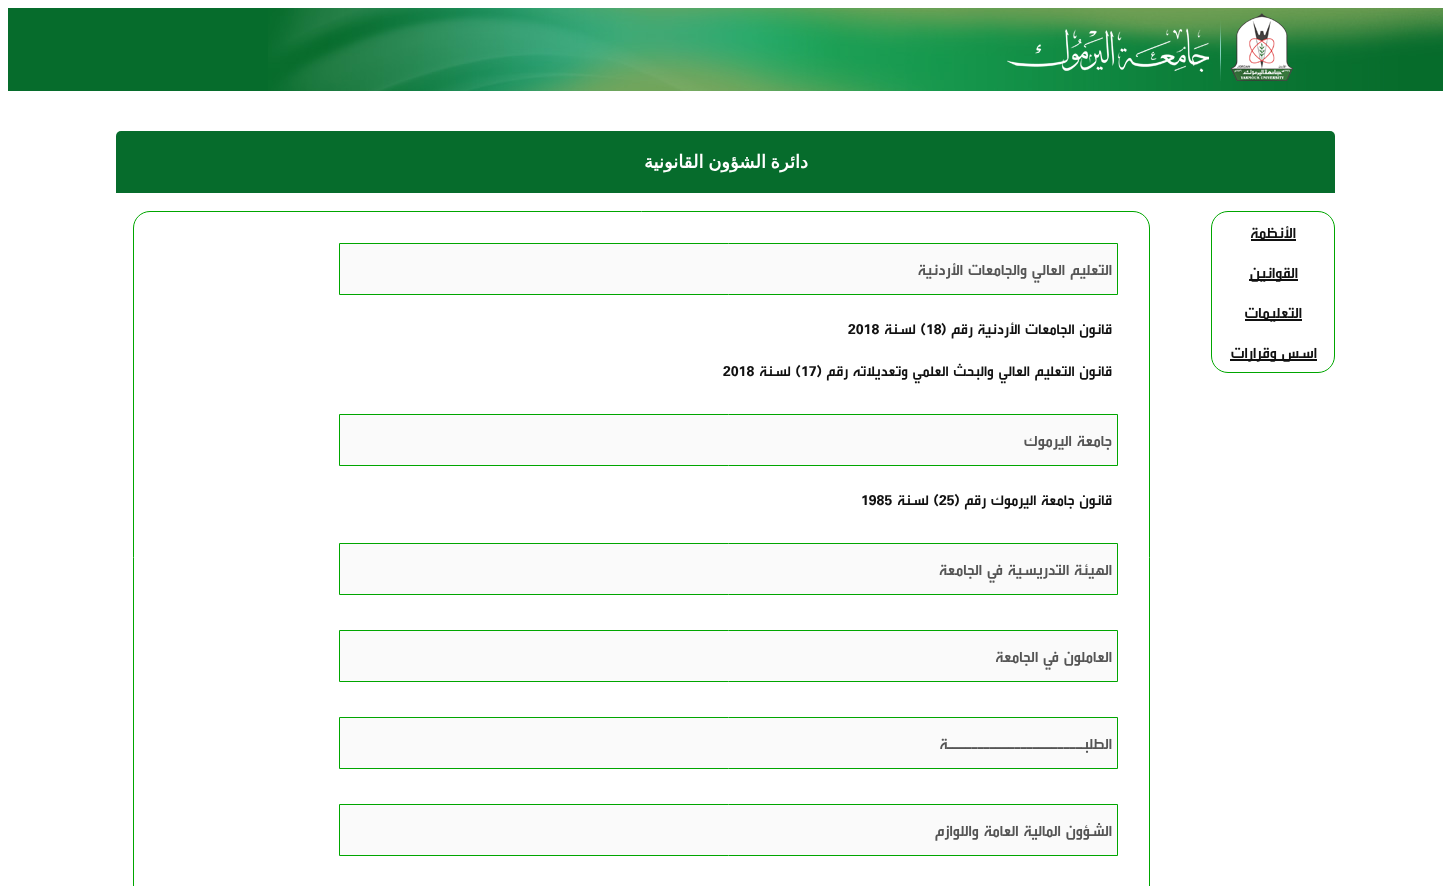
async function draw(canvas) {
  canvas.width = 1451
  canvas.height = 886
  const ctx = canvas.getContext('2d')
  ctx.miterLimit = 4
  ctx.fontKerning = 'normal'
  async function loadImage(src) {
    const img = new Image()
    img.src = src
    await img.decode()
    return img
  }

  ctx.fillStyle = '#fff'
  ctx.fillRect(0, 0, 1451, 886)
  ctx.fillStyle = '#066c2c'
  ctx.fillRect(8, 8, 260, 83)
  ctx.drawImage(await loadImage('image0.png'), 268, 8, 1175, 83)
  ctx.drawImage(await loadImage('image1.png'), 1007, 13, 286, 68)
  ctx.beginPath()
  ctx.roundRect(116, 131, 1219, 62, [5, 5, 0, 0])
  ctx.fill()
  ctx.wordSpacing = '-1px'
  ctx.direction = 'rtl'
  ctx.font = 'bold 18px DejaVu Sans'
  ctx.fillStyle = '#fff'
  ctx.fillText('دائرة الشؤون القانونية', 808, 168)
  ctx.beginPath()
  ctx.roundRect(1211.5, 211.5, 123, 161, 16.5)
  ctx.strokeStyle = '#00a600'
  ctx.stroke()
  ctx.fillStyle = '#111'
  ctx.fillRect(1251, 239, 45, 2)
  ctx.wordSpacing = '0px'
  ctx.font = 'bold 20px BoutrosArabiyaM'
  ctx.fillText('الأنظمة', 1296, 238)
  ctx.fillRect(1249, 279, 49, 2)
  ctx.fillText('القوانين', 1298, 278)
  ctx.fillRect(1245, 319, 57, 2)
  ctx.fillText('التعليمات', 1302, 318)
  ctx.fillRect(1230, 359, 87, 2)
  ctx.fillText('اسس وقرارات', 1317, 358)
  ctx.beginPath()
  ctx.roundRect(133.5, 211.5, 1016, 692, 16.5)
  ctx.stroke()
  ctx.fillStyle = '#fafafa'
  ctx.beginPath()
  ctx.rect(339.5, 243.5, 778, 51)
  ctx.fill()
  ctx.stroke()
  ctx.fillStyle = '#555'
  ctx.fillText('التعليم العالي والجامعات الأردنية', 1112, 275)
  ctx.font = 'bold 19px BoutrosArabiyaM'
  ctx.fillStyle = '#111'
  ctx.fillText('قانون الجامعات الأردنية رقم (', 1112, 334)
  ctx.direction = 'ltr'
  ctx.fillText('18', 926, 334)
  ctx.direction = 'rtl'
  ctx.fillText(') لسنة', 926, 334)
  ctx.direction = 'ltr'
  ctx.fillText('2018', 848, 334)
  ctx.direction = 'rtl'
  ctx.fillText('قانون التعليم العالي والبحث العلمي وتعديلاته رقم (', 1112, 376)
  ctx.direction = 'ltr'
  ctx.fillText('17', 801, 376)
  ctx.direction = 'rtl'
  ctx.fillText(') لسنة', 801, 376)
  ctx.direction = 'ltr'
  ctx.fillText('2018', 723, 376)
  ctx.fillStyle = '#fafafa'
  ctx.beginPath()
  ctx.rect(339.5, 414.5, 778, 51)
  ctx.fill()
  ctx.stroke()
  ctx.direction = 'rtl'
  ctx.font = 'bold 20px BoutrosArabiyaM'
  ctx.fillStyle = '#555'
  ctx.fillText('جامعة اليرموك', 1112, 446)
  ctx.font = 'bold 19px BoutrosArabiyaM'
  ctx.fillStyle = '#111'
  ctx.fillText('قانون جامعة اليرموك رقم (', 1112, 505)
  ctx.direction = 'ltr'
  ctx.fillText('25', 939, 505)
  ctx.direction = 'rtl'
  ctx.fillText(') لسنة', 939, 505)
  ctx.direction = 'ltr'
  ctx.fillText('1985', 861, 505)
  ctx.fillStyle = '#fafafa'
  ctx.beginPath()
  ctx.rect(339.5, 543.5, 778, 51)
  ctx.fill()
  ctx.stroke()
  ctx.direction = 'rtl'
  ctx.font = 'bold 20px BoutrosArabiyaM'
  ctx.fillStyle = '#555'
  ctx.fillText('الهيئة التدريسية في الجامعة', 1112, 575)
  ctx.fillStyle = '#fafafa'
  ctx.beginPath()
  ctx.rect(339.5, 630.5, 778, 51)
  ctx.fill()
  ctx.stroke()
  ctx.fillStyle = '#555'
  ctx.fillText('العاملون في الجامعة', 1112, 662)
  ctx.fillStyle = '#fafafa'
  ctx.beginPath()
  ctx.rect(339.5, 717.5, 778, 51)
  ctx.fill()
  ctx.stroke()
  ctx.fillStyle = '#555'
  ctx.fillText('الطلبــــــــــــــــــــــة', 1112, 749)
  ctx.fillStyle = '#fafafa'
  ctx.beginPath()
  ctx.rect(339.5, 804.5, 778, 51)
  ctx.fill()
  ctx.stroke()
  ctx.fillStyle = '#555'
  ctx.fillText('الشؤون المالية العامة واللوازم', 1112, 836)
}

draw(document.querySelector('canvas'))
